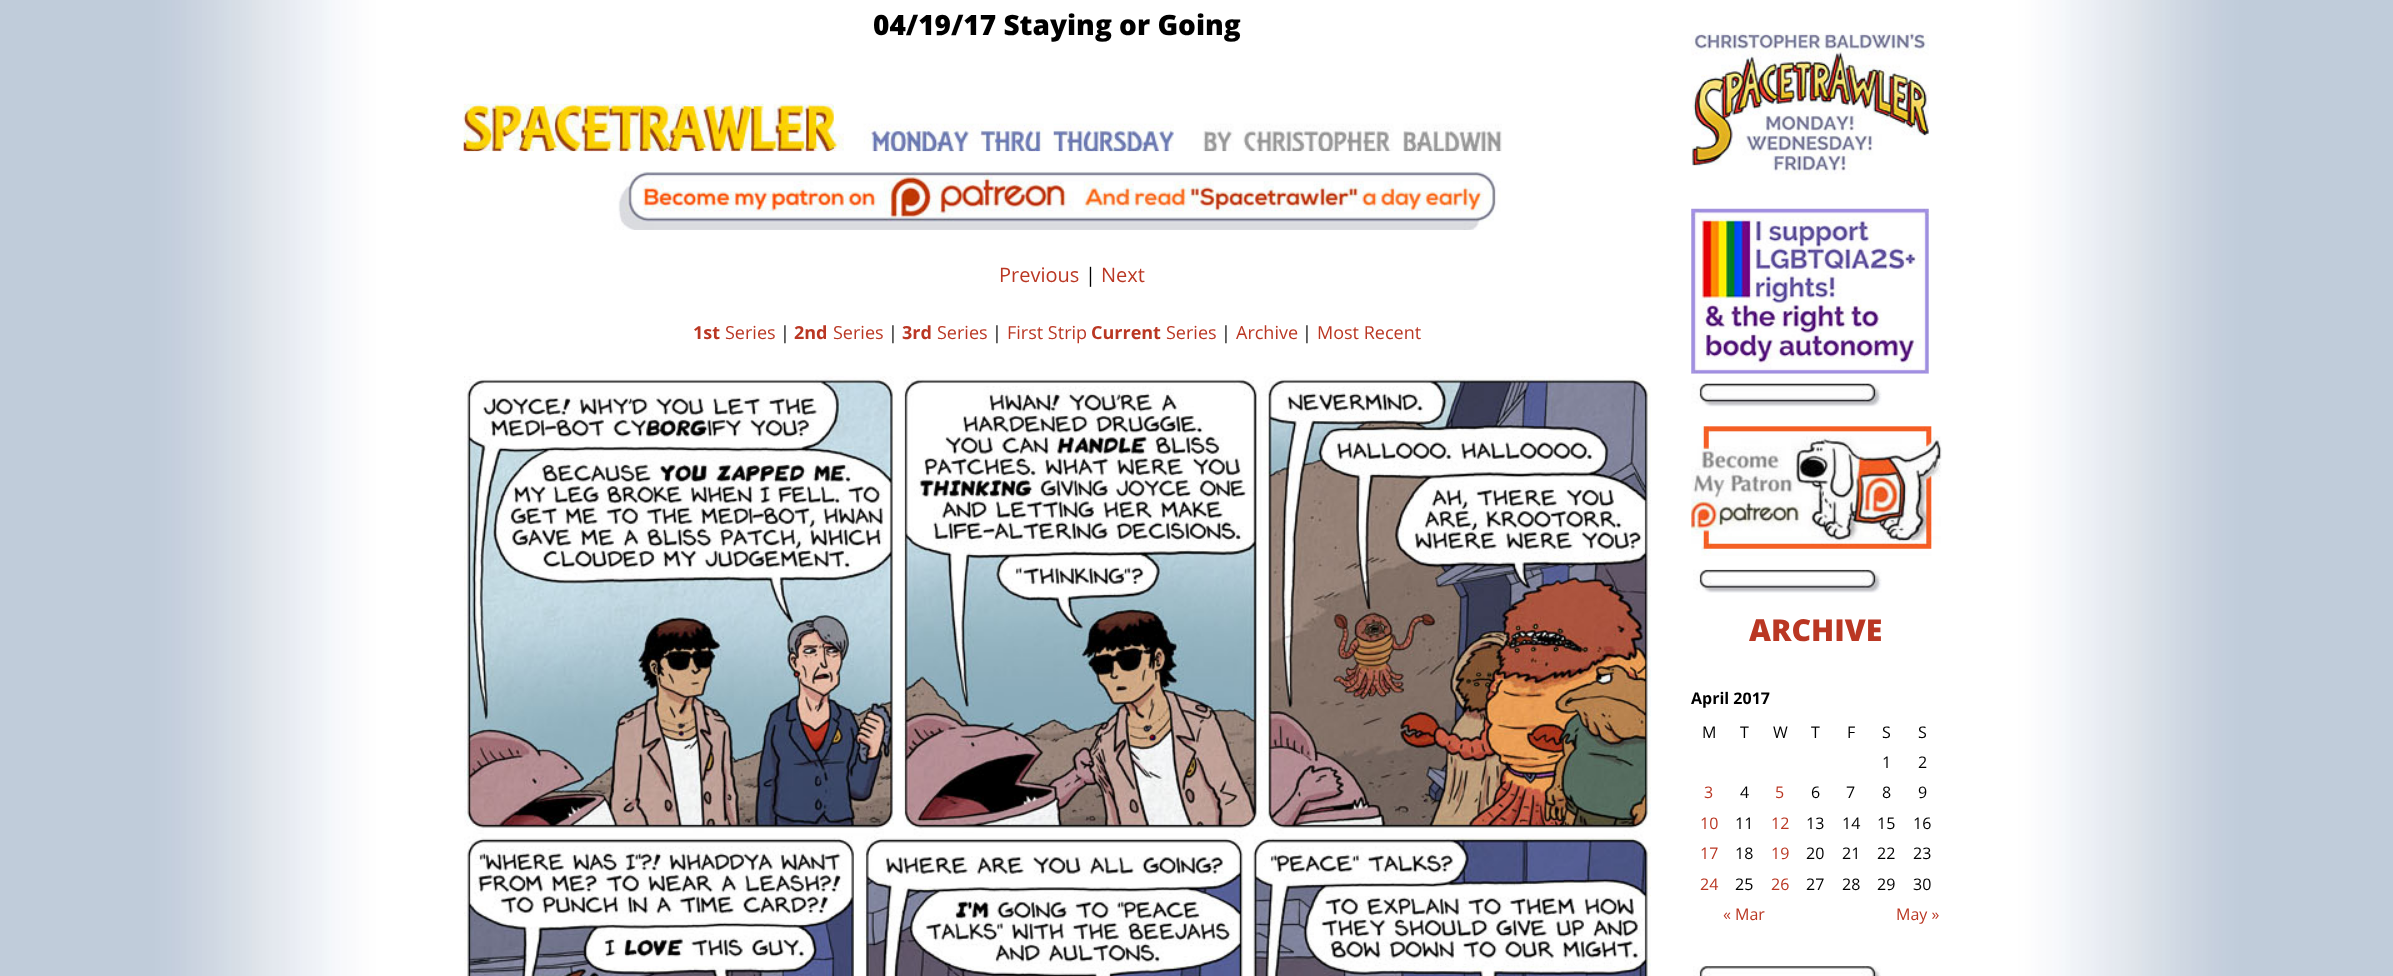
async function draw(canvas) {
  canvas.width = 2393
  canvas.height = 976
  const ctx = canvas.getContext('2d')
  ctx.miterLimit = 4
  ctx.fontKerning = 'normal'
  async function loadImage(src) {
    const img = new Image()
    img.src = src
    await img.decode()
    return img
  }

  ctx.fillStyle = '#fff'
  ctx.fillRect(0, 0, 2393, 976)
  ctx.drawImage(await loadImage('image0.png'), 0, 0, 2393, 976)
  ctx.font = '800 28px Open Sans'
  ctx.fillStyle = '#000'
  ctx.fillText('04/19/17 Staying or Going', 873, 35)
  ctx.drawImage(await loadImage('image1.png'), 463, 103, 1039, 49)
  ctx.drawImage(await loadImage('image2.png'), 464, 151, 1037, 79)
  ctx.font = '20px Open Sans'
  ctx.fillStyle = '#ba3723'
  ctx.fillText('Previous', 999, 282)
  ctx.fillStyle = '#000'
  ctx.fillText('|', 1085, 282)
  ctx.fillStyle = '#ba3723'
  ctx.fillText('Next', 1101, 282)
  ctx.font = 'bold 18px Open Sans'
  ctx.fillText('1st', 693, 339)
  ctx.font = '18px Open Sans'
  ctx.fillText('Series', 725, 339)
  ctx.fillStyle = '#000'
  ctx.fillText('|', 780, 339)
  ctx.font = 'bold 18px Open Sans'
  ctx.fillStyle = '#ba3723'
  ctx.fillText('2nd', 794, 339)
  ctx.font = '18px Open Sans'
  ctx.fillText('Series', 833, 339)
  ctx.fillStyle = '#000'
  ctx.fillText('|', 888, 339)
  ctx.font = 'bold 18px Open Sans'
  ctx.fillStyle = '#ba3723'
  ctx.fillText('3rd', 902, 339)
  ctx.font = '18px Open Sans'
  ctx.fillText('Series', 937, 339)
  ctx.fillStyle = '#000'
  ctx.fillText('|', 992, 339)
  ctx.fillStyle = '#ba3723'
  ctx.fillText('First Strip', 1007, 339)
  ctx.font = 'bold 18px Open Sans'
  ctx.fillText('Current', 1091, 339)
  ctx.font = '18px Open Sans'
  ctx.fillText('Series', 1166, 339)
  ctx.fillStyle = '#000'
  ctx.fillText('|', 1221, 339)
  ctx.fillStyle = '#ba3723'
  ctx.fillText('Archive', 1236, 339)
  ctx.fillStyle = '#000'
  ctx.fillText('|', 1302, 339)
  ctx.fillStyle = '#ba3723'
  ctx.fillText('Most Recent', 1317, 339)
  ctx.drawImage(await loadImage('image3.png'), 464, 376, 1187, 600)
  ctx.drawImage(await loadImage('image4.png'), 1691, 33, 238, 142)
  ctx.drawImage(await loadImage('image5.png'), 1691, 208, 238, 166)
  ctx.drawImage(await loadImage('image6.png'), 1691, 373, 238, 34)
  ctx.drawImage(await loadImage('image7.png'), 1691, 426, 251, 130)
  ctx.drawImage(await loadImage('image8.png'), 1693, 569, 189, 24)
  ctx.font = '800 30.25px Open Sans'
  ctx.fillText('ARCHIVE', 1749, 641)
  ctx.font = 'bold 16px Open Sans'
  ctx.fillStyle = '#000'
  ctx.fillText('April 2017', 1691, 704)
  ctx.font = '16px Open Sans'
  ctx.fillText('M', 1702, 738)
  ctx.fillText('T', 1740, 738)
  ctx.fillText('W', 1773, 738)
  ctx.fillText('T', 1811, 738)
  ctx.fillText('F', 1847, 738)
  ctx.fillText('S', 1882, 738)
  ctx.fillText('S', 1918, 738)
  ctx.fillText('1', 1882, 768)
  ctx.fillText('2', 1918, 768)
  ctx.fillStyle = '#ba3723'
  ctx.fillText('3', 1704, 798)
  ctx.fillStyle = '#000'
  ctx.fillText('4', 1740, 798)
  ctx.fillStyle = '#ba3723'
  ctx.fillText('5', 1775, 798)
  ctx.fillStyle = '#000'
  ctx.fillText('6', 1811, 798)
  ctx.fillText('7', 1846, 798)
  ctx.fillText('8', 1882, 798)
  ctx.fillText('9', 1918, 798)
  ctx.fillStyle = '#ba3723'
  ctx.fillText('10', 1700, 829)
  ctx.fillStyle = '#000'
  ctx.fillText('11', 1735, 829)
  ctx.fillStyle = '#ba3723'
  ctx.fillText('12', 1771, 829)
  ctx.fillStyle = '#000'
  ctx.fillText('13', 1806, 829)
  ctx.fillText('14', 1842, 829)
  ctx.fillText('15', 1877, 829)
  ctx.fillText('16', 1913, 829)
  ctx.fillStyle = '#ba3723'
  ctx.fillText('17', 1700, 859)
  ctx.fillStyle = '#000'
  ctx.fillText('18', 1735, 859)
  ctx.fillStyle = '#ba3723'
  ctx.fillText('19', 1771, 859)
  ctx.fillStyle = '#000'
  ctx.fillText('20', 1806, 859)
  ctx.fillText('21', 1842, 859)
  ctx.fillText('22', 1877, 859)
  ctx.fillText('23', 1913, 859)
  ctx.fillStyle = '#ba3723'
  ctx.fillText('24', 1700, 890)
  ctx.fillStyle = '#000'
  ctx.fillText('25', 1735, 890)
  ctx.fillStyle = '#ba3723'
  ctx.fillText('26', 1771, 890)
  ctx.fillStyle = '#000'
  ctx.fillText('27', 1806, 890)
  ctx.fillText('28', 1842, 890)
  ctx.fillText('29', 1877, 890)
  ctx.fillText('30', 1913, 890)
  ctx.fillStyle = '#ba3723'
  ctx.fillText('« Mar', 1723, 920)
  ctx.fillText('May »', 1896, 920)
  ctx.drawImage(await loadImage('image9.png'), 1693, 966, 188, 10)
}

draw(document.querySelector('canvas'))
